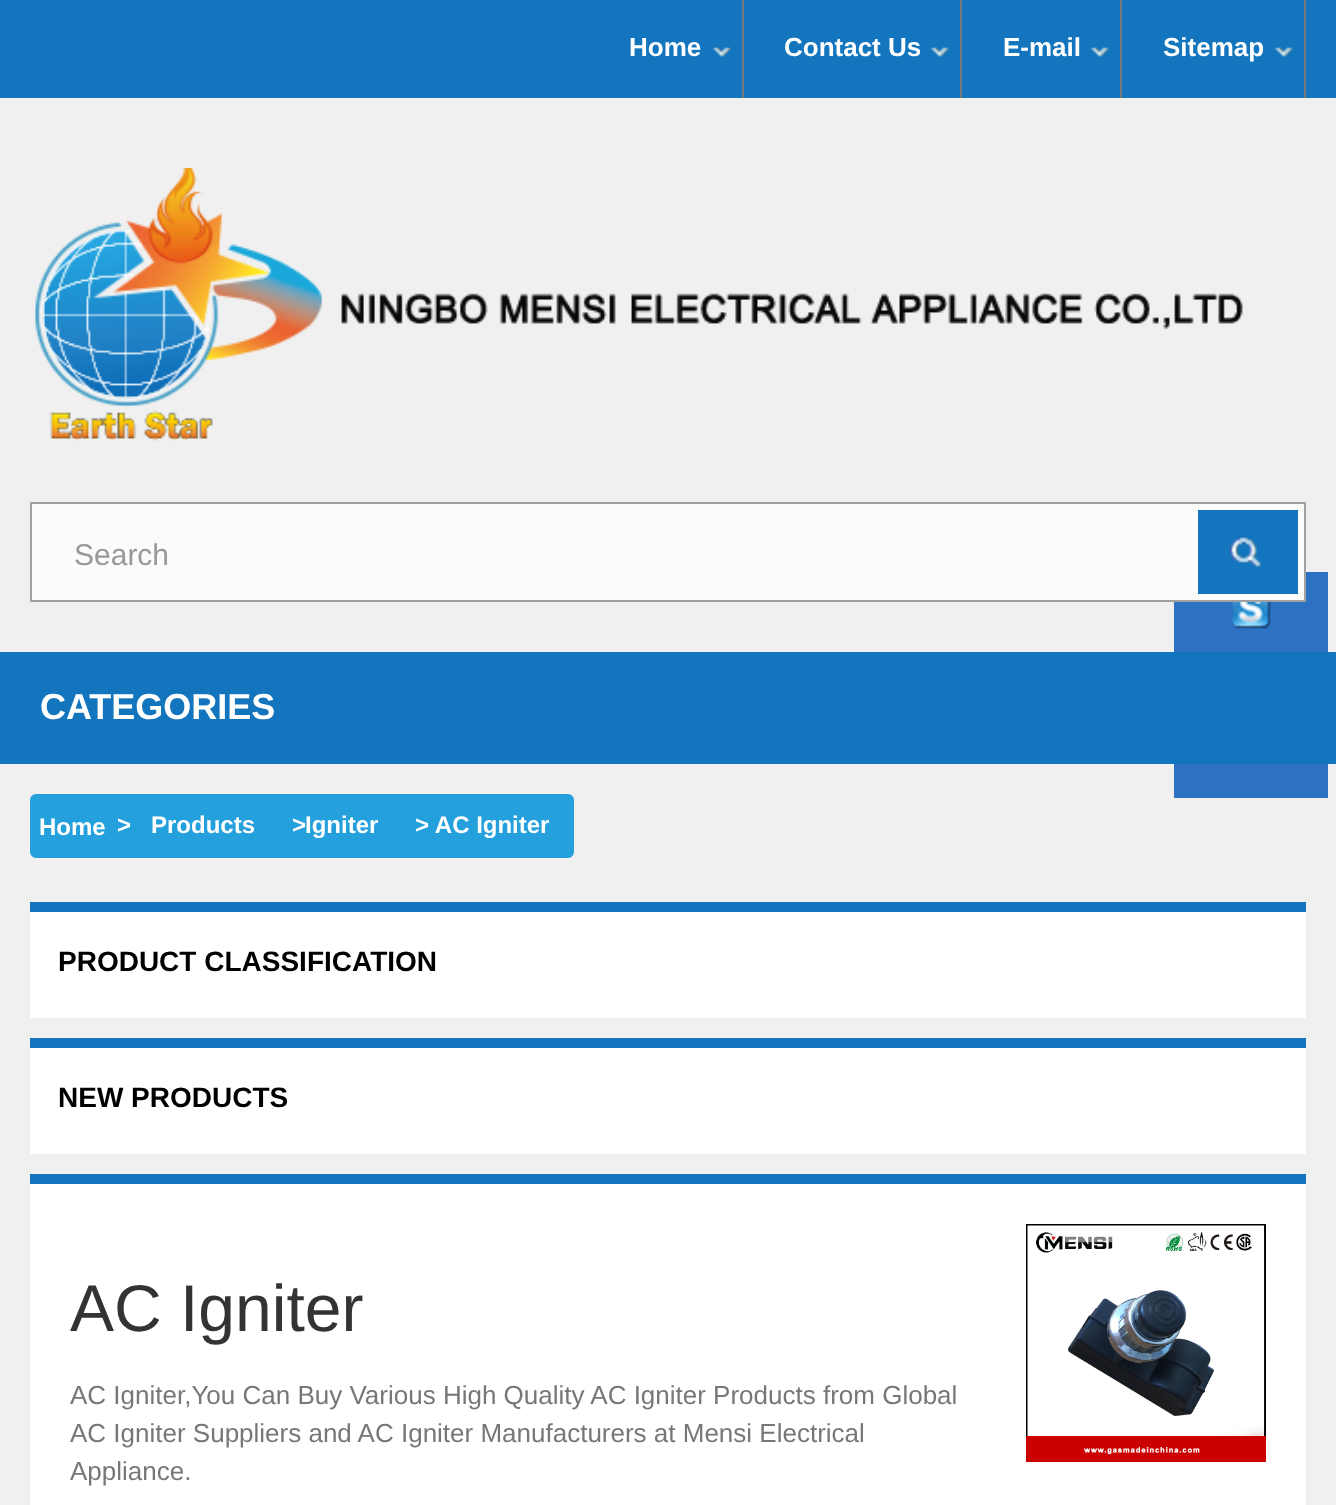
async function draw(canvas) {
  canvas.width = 1336
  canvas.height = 1505
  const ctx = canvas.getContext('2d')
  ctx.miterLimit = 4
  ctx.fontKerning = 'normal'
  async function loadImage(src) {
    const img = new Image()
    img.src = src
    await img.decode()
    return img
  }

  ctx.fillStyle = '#f0f0f0'
  ctx.fillRect(0, 0, 1336, 1505)
  ctx.fillStyle = '#1375bd'
  ctx.fillRect(0, 0, 1336, 98)
  ctx.fillStyle = '#767676'
  ctx.fillRect(742, 0, 2, 98)
  ctx.drawImage(await loadImage('image0.png'), 712, 47, 19, 10)
  ctx.font = 'bold 26px Liberation Sans'
  ctx.fillStyle = '#fff'
  ctx.fillText('Home', 629, 56)
  ctx.fillStyle = '#767676'
  ctx.fillRect(960, 0, 2, 98)
  ctx.drawImage(await loadImage('image0.png'), 930, 47, 19, 10)
  ctx.fillStyle = '#fff'
  ctx.fillText('Contact Us', 784, 56)
  ctx.fillStyle = '#767676'
  ctx.fillRect(1120, 0, 2, 98)
  ctx.drawImage(await loadImage('image0.png'), 1090, 47, 19, 10)
  ctx.fillStyle = '#fff'
  ctx.fillText('E-mail', 1003, 56)
  ctx.fillStyle = '#767676'
  ctx.fillRect(1304, 0, 2, 98)
  ctx.drawImage(await loadImage('image0.png'), 1274, 47, 19, 10)
  ctx.fillStyle = '#fff'
  ctx.fillText('Sitemap', 1163, 56)
  ctx.drawImage(await loadImage('image1.png'), 35, 168, 1208, 273)
  ctx.fillStyle = '#2d71c2'
  ctx.fillRect(1174, 572, 154, 80)
  ctx.fillStyle = '#fbfbfb'
  ctx.beginPath()
  ctx.rect(31, 503, 1274, 98)
  ctx.fill()
  ctx.strokeStyle = '#a2a1a1'
  ctx.lineWidth = 2
  ctx.stroke()
  ctx.font = '30px Liberation Sans'
  ctx.fillStyle = '#999'
  ctx.fillText('Search', 74, 565)
  ctx.fillStyle = '#1375bd'
  ctx.fillRect(1198, 510, 100, 84)
  ctx.drawImage(await loadImage('image2.png'), 1229, 537, 32, 30)
  ctx.fillRect(0, 652, 1336, 112)
  ctx.font = 'bold 36px Liberation Sans'
  ctx.fillStyle = '#fff'
  ctx.fillText('CATEGORIES', 40, 719)
  ctx.drawImage(await loadImage('image3.png'), 1231, 602, 40, 27)
  ctx.fillStyle = '#2d71c2'
  ctx.fillRect(1174, 764, 154, 34)
  ctx.fillStyle = '#24a1dc'
  ctx.beginPath()
  ctx.roundRect(31, 795, 542, 62, 5)
  ctx.fill()
  ctx.strokeStyle = '#24a1dc'
  ctx.stroke()
  ctx.font = 'bold 24px Liberation Sans'
  ctx.fillStyle = '#fff'
  ctx.fillText('Home', 39, 835)
  ctx.fillText('>', 117, 833)
  ctx.fillText('Products', 151, 833)
  ctx.fillText('>', 292, 833)
  ctx.fillText('Igniter', 305, 833)
  ctx.fillText('> AC Igniter', 415, 833)
  ctx.fillRect(30, 912, 1276, 106)
  ctx.fillStyle = '#1375bd'
  ctx.fillRect(30, 902, 1276, 10)
  ctx.font = 'bold 28px Liberation Sans'
  ctx.fillStyle = '#000'
  ctx.fillText('PRODUCT CLASSIFICATION', 58, 971)
  ctx.fillStyle = '#fff'
  ctx.fillRect(30, 1048, 1276, 106)
  ctx.fillStyle = '#1375bd'
  ctx.fillRect(30, 1038, 1276, 10)
  ctx.fillStyle = '#000'
  ctx.fillText('NEW PRODUCTS', 58, 1107)
  ctx.fillStyle = '#1375bd'
  ctx.fillRect(30, 1174, 1276, 10)
  ctx.fillStyle = '#fff'
  ctx.fillRect(30, 1184, 1276, 321)
  ctx.font = '66px Liberation Sans'
  ctx.fillStyle = '#333'
  ctx.fillText('AC Igniter', 70, 1331)
  ctx.font = '26px Liberation Sans'
  ctx.fillStyle = '#777'
  ctx.fillText('AC Igniter,You Can Buy Various High Quality AC Igniter Products from Global', 70, 1404)
  ctx.fillText('AC Igniter Suppliers and AC Igniter Manufacturers at Mensi Electrical', 70, 1442)
  ctx.fillText('Appliance.', 70, 1480)
  ctx.drawImage(await loadImage('image4.png'), 1026, 1224, 240, 238)
}

draw(document.querySelector('canvas'))
